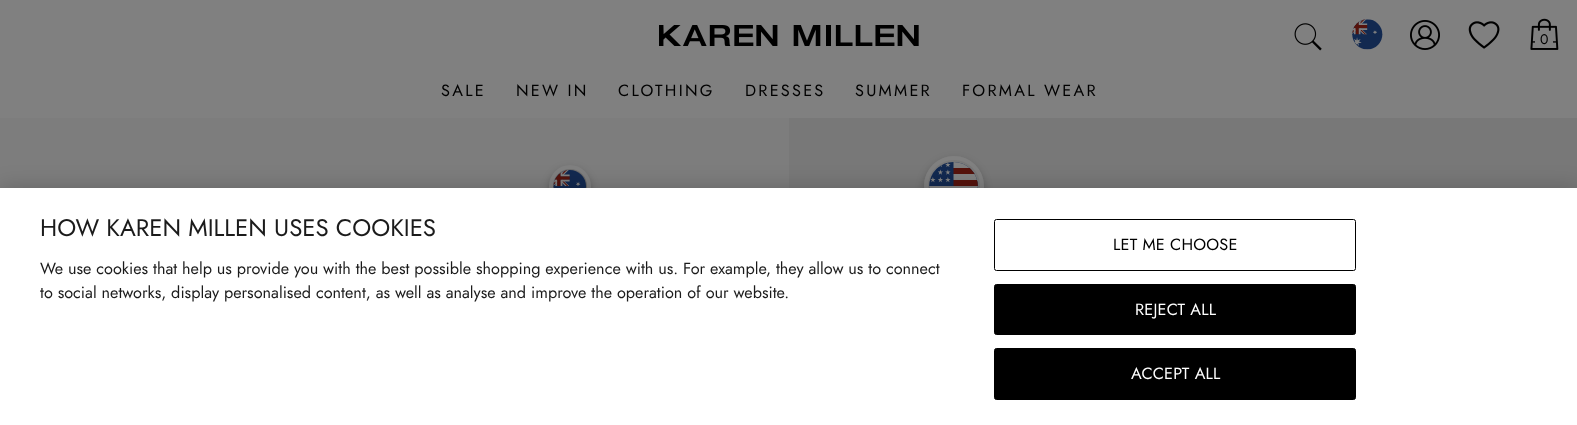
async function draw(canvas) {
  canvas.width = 1577
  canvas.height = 425
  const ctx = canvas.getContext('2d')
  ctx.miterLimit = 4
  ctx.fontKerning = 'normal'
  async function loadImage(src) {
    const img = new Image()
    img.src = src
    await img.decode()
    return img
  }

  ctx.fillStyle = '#808080'
  ctx.fillRect(0, 0, 1577, 425)
  ctx.drawImage(await loadImage('image0.png'), 659, 25, 260, 21)
  ctx.drawImage(await loadImage('image1.png'), 1294, 23, 28, 28)
  ctx.drawImage(await loadImage('image2.png'), 1352, 19, 31, 31)
  ctx.drawImage(await loadImage('image3.png'), 1410, 20, 30, 30)
  ctx.drawImage(await loadImage('image4.png'), 1468, 21, 32, 28)
  ctx.drawImage(await loadImage('image5.png'), 1530, 18, 29, 32)
  ctx.fillRect(1535, 41, 18, 2)
  ctx.letterSpacing = '1px'
  ctx.font = '14px Jost'
  ctx.fillStyle = '#000'
  ctx.fillText('0', 1540, 44)
  ctx.letterSpacing = '2.25px'
  ctx.font = '16.25px Jost'
  ctx.fillText('SALE', 441, 96)
  ctx.fillText('NEW IN', 516, 96)
  ctx.fillText('CLOTHING', 618, 96)
  ctx.fillText('DRESSES', 745, 96)
  ctx.fillText('SUMMER', 855, 96)
  ctx.fillText('FORMAL WEAR', 962, 96)
  ctx.fillStyle = '#7d7d7d'
  ctx.fillRect(0, 118, 789, 70)
  ctx.fillStyle = '#0000003d'
  ctx.filter = 'blur(4px)'
  ctx.beginPath()
  ctx.roundRect(549, 169, 42, 42, 21)
  ctx.fill()
  ctx.filter = 'none'
  ctx.drawImage(await loadImage('image6.png'), 553, 170, 34, 18)
  ctx.beginPath()
  ctx.roundRect(551, 167, 38, 39, 19)
  ctx.strokeStyle = '#808080'
  ctx.lineWidth = 4
  ctx.stroke()
  ctx.fillStyle = '#787878'
  ctx.fillRect(789, 118, 788, 70)
  ctx.save()
  ctx.beginPath()
  ctx.moveTo(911, 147)
  ctx.lineTo(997, 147)
  ctx.lineTo(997, 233)
  ctx.lineTo(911, 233)
  ctx.closePath()
  ctx.moveTo(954, 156)
  ctx.bezierCurveTo(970.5, 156, 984, 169.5, 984, 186)
  ctx.bezierCurveTo(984, 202.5, 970.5, 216, 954, 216)
  ctx.bezierCurveTo(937.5, 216, 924, 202.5, 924, 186)
  ctx.bezierCurveTo(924, 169.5, 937.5, 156, 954, 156)
  ctx.closePath()
  ctx.clip('evenodd')
  ctx.fillStyle = '#0000003d'
  ctx.filter = 'blur(4px)'
  ctx.beginPath()
  ctx.roundRect(924, 160, 60, 60, 30)
  ctx.fill()
  ctx.filter = 'none'
  ctx.restore()
  ctx.drawImage(await loadImage('image7.png'), 929, 162, 49, 26)
  ctx.beginPath()
  ctx.arc(954, 186, 28, 0, 2 * Math.PI)
  ctx.stroke()
  ctx.fillStyle = '#00000033'
  ctx.filter = 'blur(11px)'
  ctx.beginPath()
  ctx.rect(0, 188, 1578, 237)
  ctx.fill()
  ctx.filter = 'none'
  ctx.fillStyle = '#fff'
  ctx.fillRect(0, 188, 1577, 237)
  ctx.letterSpacing = '0px'
  ctx.font = '24px Jost'
  ctx.fillStyle = '#1b1b1b'
  ctx.fillText('HOW KAREN MILLEN USES COOKIES', 40, 236)
  ctx.font = '16.25px Jost'
  ctx.fillText('We use cookies that help us provide you with the best possible shopping experience with us. For example, they allow us to connect', 40, 274)
  ctx.fillText('to social networks, display personalised content, as well as analyse and improve the operation of our website.', 40, 298)
  ctx.beginPath()
  ctx.roundRect(994.5, 219.5, 361, 51, 2)
  ctx.strokeStyle = '#000'
  ctx.lineWidth = 1
  ctx.stroke()
  ctx.letterSpacing = '0.2px'
  ctx.fillStyle = '#000'
  ctx.fillText('LET ME CHOOSE', 1113, 250)
  ctx.beginPath()
  ctx.roundRect(994.5, 284.5, 361, 50, 2)
  ctx.fill()
  ctx.stroke()
  ctx.fillStyle = '#fff'
  ctx.fillText('REJECT ALL', 1135, 315)
  ctx.fillStyle = '#000'
  ctx.beginPath()
  ctx.roundRect(994.5, 348.5, 361, 51, 2)
  ctx.fill()
  ctx.stroke()
  ctx.fillStyle = '#fff'
  ctx.fillText('ACCEPT ALL', 1131, 379)
}

draw(document.querySelector('canvas'))
